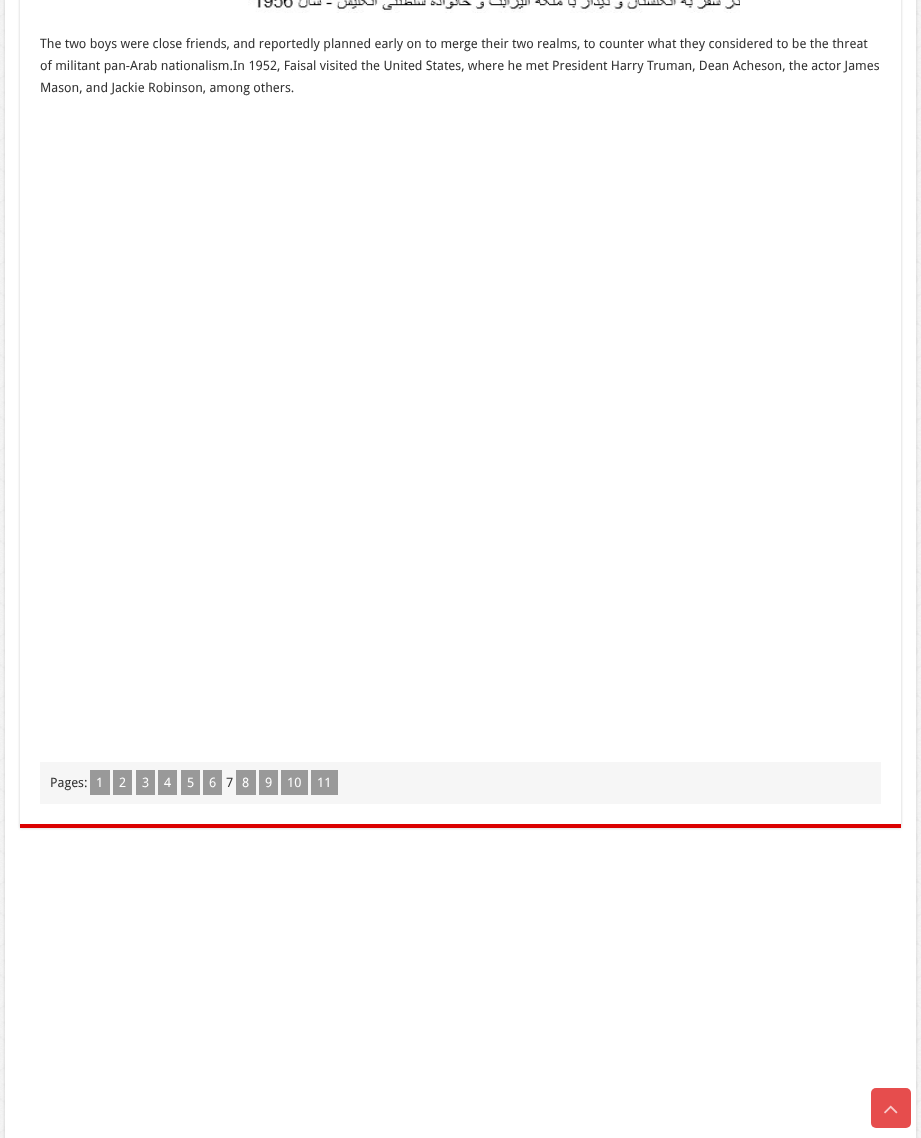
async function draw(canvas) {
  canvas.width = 921
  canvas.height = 1138
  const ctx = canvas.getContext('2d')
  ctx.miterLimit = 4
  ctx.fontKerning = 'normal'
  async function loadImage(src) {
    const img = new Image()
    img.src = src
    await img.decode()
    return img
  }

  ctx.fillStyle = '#fff'
  ctx.fillRect(0, 0, 921, 1138)
  ctx.drawImage(await loadImage('image0.png'), 0, 0, 921, 1138)
  ctx.fillStyle = '#cacaca'
  ctx.filter = 'blur(1.5px)'
  ctx.beginPath()
  ctx.rect(5, -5, 911, 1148)
  ctx.fill()
  ctx.filter = 'none'
  ctx.fillStyle = '#fff'
  ctx.fillRect(5, 0, 911, 1138)
  ctx.save()
  ctx.beginPath()
  ctx.moveTo(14, 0)
  ctx.lineTo(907, 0)
  ctx.lineTo(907, 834)
  ctx.lineTo(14, 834)
  ctx.closePath()
  ctx.moveTo(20, -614)
  ctx.lineTo(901, -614)
  ctx.lineTo(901, 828)
  ctx.lineTo(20, 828)
  ctx.closePath()
  ctx.clip('evenodd')
  ctx.fillStyle = '#cacaca'
  ctx.filter = 'blur(1.5px)'
  ctx.beginPath()
  ctx.rect(20, -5, 881, 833)
  ctx.fill()
  ctx.filter = 'none'
  ctx.restore()
  ctx.fillStyle = '#db0000'
  ctx.fillRect(20, 824, 881, 4)
  ctx.drawImage(await loadImage('image1.png'), 248, 0, 492, 13)
  ctx.font = '13px Droid Sans'
  ctx.fillStyle = '#333'
  ctx.fillText('The two boys were close friends, and reportedly planned early on to merge their two realms, to counter what they considered to be the threat', 40, 48)
  ctx.fillText('of militant pan-Arab nationalism.In 1952, Faisal visited the United States, where he met President Harry Truman, Dean Acheson, the actor James', 40, 70)
  ctx.fillText('Mason, and Jackie Robinson, among others.', 40, 92)
  ctx.fillStyle = '#f6f6f6'
  ctx.fillRect(40, 762, 841, 42)
  ctx.fillStyle = '#333'
  ctx.fillText('Pages:', 50, 787)
  ctx.fillStyle = '#999'
  ctx.fillRect(90, 770, 20, 25)
  ctx.fillStyle = '#fff'
  ctx.fillText('1', 96, 787)
  ctx.fillStyle = '#999'
  ctx.fillRect(113, 770, 19, 25)
  ctx.fillStyle = '#fff'
  ctx.fillText('2', 119, 787)
  ctx.fillStyle = '#999'
  ctx.fillRect(136, 770, 19, 25)
  ctx.fillStyle = '#fff'
  ctx.fillText('3', 142, 787)
  ctx.fillStyle = '#999'
  ctx.fillRect(158, 770, 19, 25)
  ctx.fillStyle = '#fff'
  ctx.fillText('4', 164, 787)
  ctx.fillStyle = '#999'
  ctx.fillRect(181, 770, 19, 25)
  ctx.fillStyle = '#fff'
  ctx.fillText('5', 187, 787)
  ctx.fillStyle = '#999'
  ctx.fillRect(203, 770, 19, 25)
  ctx.fillStyle = '#fff'
  ctx.fillText('6', 209, 787)
  ctx.fillStyle = '#333'
  ctx.fillText('7', 226, 787)
  ctx.fillStyle = '#999'
  ctx.fillRect(236, 770, 20, 25)
  ctx.fillStyle = '#fff'
  ctx.fillText('8', 242, 787)
  ctx.fillStyle = '#999'
  ctx.fillRect(259, 770, 19, 25)
  ctx.fillStyle = '#fff'
  ctx.fillText('9', 265, 787)
  ctx.fillStyle = '#999'
  ctx.fillRect(281, 770, 27, 25)
  ctx.fillStyle = '#fff'
  ctx.fillText('10', 287, 787)
  ctx.fillStyle = '#999'
  ctx.fillRect(311, 770, 27, 25)
  ctx.fillStyle = '#fff'
  ctx.fillText('11', 317, 787)
  ctx.fillStyle = '#e64d4d'
  ctx.beginPath()
  ctx.roundRect(871, 1088, 40, 40, 5)
  ctx.fill()
  ctx.drawImage(await loadImage('image2.png'), 884, 1105, 14, 9)
}

draw(document.querySelector('canvas'))
